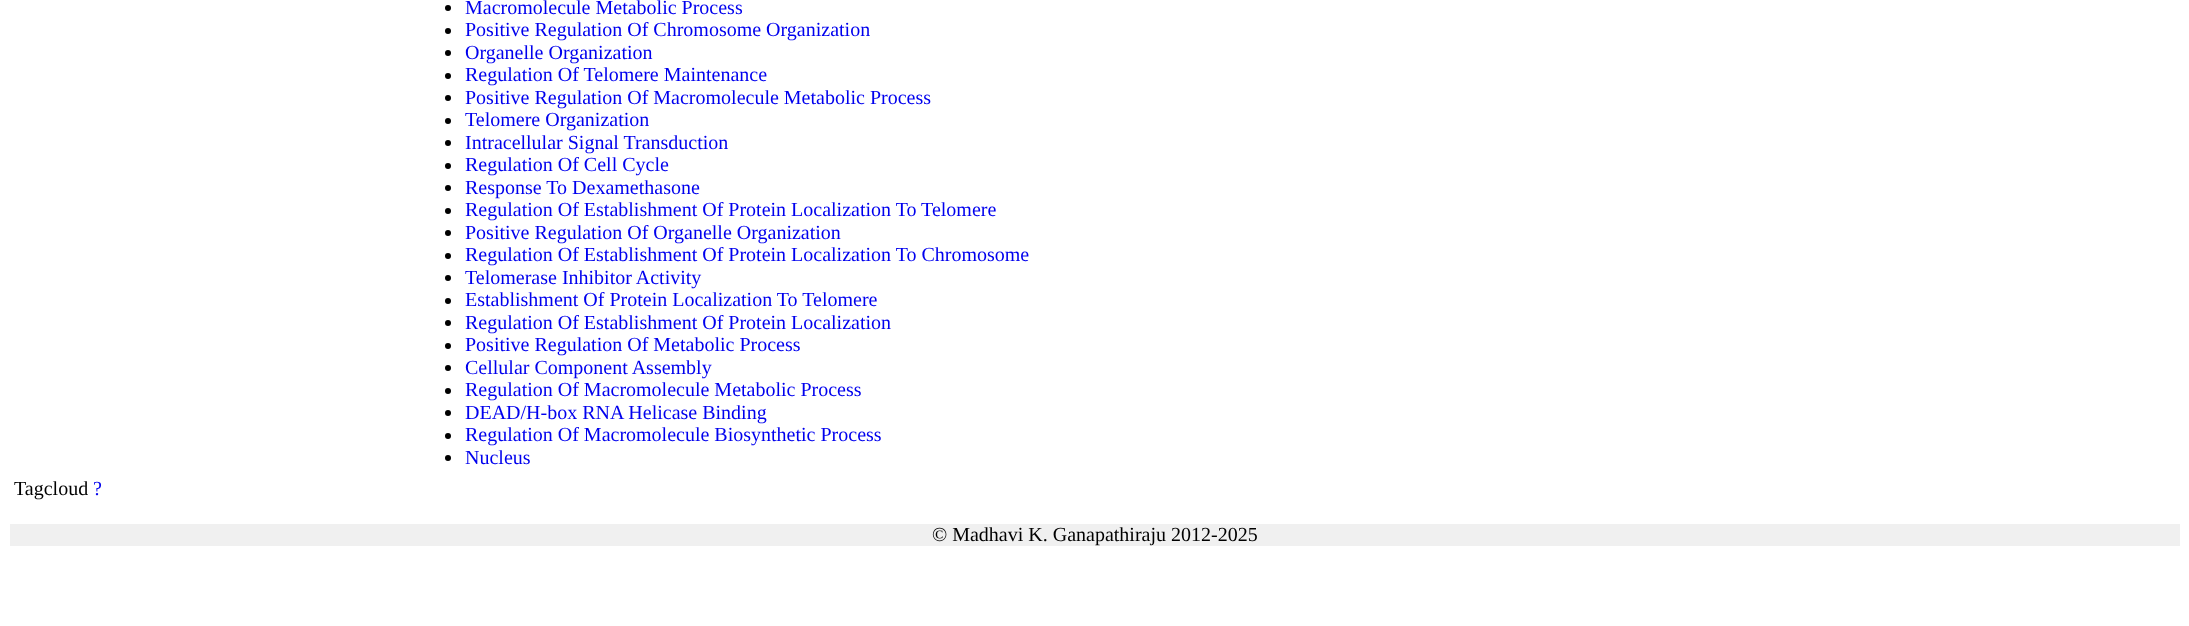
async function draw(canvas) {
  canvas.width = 2189
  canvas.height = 626
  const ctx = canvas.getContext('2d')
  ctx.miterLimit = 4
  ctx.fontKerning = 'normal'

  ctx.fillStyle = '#fff'
  ctx.fillRect(0, 0, 2189, 626)
  ctx.fillStyle = '#000'
  ctx.beginPath()
  ctx.arc(448, 8, 3, 0, 2 * Math.PI)
  ctx.fill()
  ctx.font = '20px Liberation Serif'
  ctx.fillStyle = '#00e'
  ctx.fillText('Macromolecule Metabolic Process', 465, 14)
  ctx.fillStyle = '#000'
  ctx.beginPath()
  ctx.arc(448, 31, 3, 0, 2 * Math.PI)
  ctx.fill()
  ctx.fillStyle = '#00e'
  ctx.fillText('Positive Regulation Of Chromosome Organization', 465, 36)
  ctx.fillStyle = '#000'
  ctx.beginPath()
  ctx.arc(448, 53, 3, 0, 2 * Math.PI)
  ctx.fill()
  ctx.fillStyle = '#00e'
  ctx.fillText('Organelle Organization', 465, 59)
  ctx.fillStyle = '#000'
  ctx.beginPath()
  ctx.arc(448, 76, 3, 0, 2 * Math.PI)
  ctx.fill()
  ctx.fillStyle = '#00e'
  ctx.fillText('Regulation Of Telomere Maintenance', 465, 81)
  ctx.fillStyle = '#000'
  ctx.beginPath()
  ctx.arc(448, 98, 3, 0, 2 * Math.PI)
  ctx.fill()
  ctx.fillStyle = '#00e'
  ctx.fillText('Positive Regulation Of Macromolecule Metabolic Process', 465, 104)
  ctx.fillStyle = '#000'
  ctx.beginPath()
  ctx.arc(448, 121, 3, 0, 2 * Math.PI)
  ctx.fill()
  ctx.fillStyle = '#00e'
  ctx.fillText('Telomere Organization', 465, 126)
  ctx.fillStyle = '#000'
  ctx.beginPath()
  ctx.arc(448, 143, 3, 0, 2 * Math.PI)
  ctx.fill()
  ctx.fillStyle = '#00e'
  ctx.fillText('Intracellular Signal Transduction', 465, 149)
  ctx.fillStyle = '#000'
  ctx.beginPath()
  ctx.arc(448, 166, 3, 0, 2 * Math.PI)
  ctx.fill()
  ctx.fillStyle = '#00e'
  ctx.fillText('Regulation Of Cell Cycle', 465, 171)
  ctx.fillStyle = '#000'
  ctx.beginPath()
  ctx.arc(448, 188, 3, 0, 2 * Math.PI)
  ctx.fill()
  ctx.fillStyle = '#00e'
  ctx.fillText('Response To Dexamethasone', 465, 194)
  ctx.fillStyle = '#000'
  ctx.beginPath()
  ctx.arc(448, 211, 3, 0, 2 * Math.PI)
  ctx.fill()
  ctx.fillStyle = '#00e'
  ctx.fillText('Regulation Of Establishment Of Protein Localization To Telomere', 465, 216)
  ctx.fillStyle = '#000'
  ctx.beginPath()
  ctx.arc(448, 233, 3, 0, 2 * Math.PI)
  ctx.fill()
  ctx.fillStyle = '#00e'
  ctx.fillText('Positive Regulation Of Organelle Organization', 465, 239)
  ctx.fillStyle = '#000'
  ctx.beginPath()
  ctx.arc(448, 256, 3, 0, 2 * Math.PI)
  ctx.fill()
  ctx.fillStyle = '#00e'
  ctx.fillText('Regulation Of Establishment Of Protein Localization To Chromosome', 465, 261)
  ctx.fillStyle = '#000'
  ctx.beginPath()
  ctx.arc(448, 278, 3, 0, 2 * Math.PI)
  ctx.fill()
  ctx.fillStyle = '#00e'
  ctx.fillText('Telomerase Inhibitor Activity', 465, 284)
  ctx.fillStyle = '#000'
  ctx.beginPath()
  ctx.arc(448, 301, 3, 0, 2 * Math.PI)
  ctx.fill()
  ctx.fillStyle = '#00e'
  ctx.fillText('Establishment Of Protein Localization To Telomere', 465, 306)
  ctx.fillStyle = '#000'
  ctx.beginPath()
  ctx.arc(448, 323, 3, 0, 2 * Math.PI)
  ctx.fill()
  ctx.fillStyle = '#00e'
  ctx.fillText('Regulation Of Establishment Of Protein Localization', 465, 329)
  ctx.fillStyle = '#000'
  ctx.beginPath()
  ctx.arc(448, 346, 3, 0, 2 * Math.PI)
  ctx.fill()
  ctx.fillStyle = '#00e'
  ctx.fillText('Positive Regulation Of Metabolic Process', 465, 351)
  ctx.fillStyle = '#000'
  ctx.beginPath()
  ctx.arc(448, 368, 3, 0, 2 * Math.PI)
  ctx.fill()
  ctx.fillStyle = '#00e'
  ctx.fillText('Cellular Component Assembly', 465, 374)
  ctx.fillStyle = '#000'
  ctx.beginPath()
  ctx.arc(448, 391, 3, 0, 2 * Math.PI)
  ctx.fill()
  ctx.fillStyle = '#00e'
  ctx.fillText('Regulation Of Macromolecule Metabolic Process', 465, 396)
  ctx.fillStyle = '#000'
  ctx.beginPath()
  ctx.arc(448, 413, 3, 0, 2 * Math.PI)
  ctx.fill()
  ctx.fillStyle = '#00e'
  ctx.fillText('DEAD/H-box RNA Helicase Binding', 465, 419)
  ctx.fillStyle = '#000'
  ctx.beginPath()
  ctx.arc(448, 436, 3, 0, 2 * Math.PI)
  ctx.fill()
  ctx.fillStyle = '#00e'
  ctx.fillText('Regulation Of Macromolecule Biosynthetic Process', 465, 441)
  ctx.fillStyle = '#000'
  ctx.beginPath()
  ctx.arc(448, 458, 3, 0, 2 * Math.PI)
  ctx.fill()
  ctx.fillStyle = '#00e'
  ctx.fillText('Nucleus', 465, 464)
  ctx.fillStyle = '#000'
  ctx.fillText('Tagcloud', 14, 495)
  ctx.fillStyle = '#00e'
  ctx.fillText('?', 93, 495)
  ctx.fillStyle = '#f0f0f0'
  ctx.fillRect(10, 524, 2170, 22)
  ctx.fillStyle = '#000'
  ctx.fillText('© Madhavi K. Ganapathiraju 2012-2025', 932, 541)
}

draw(document.querySelector('canvas'))
